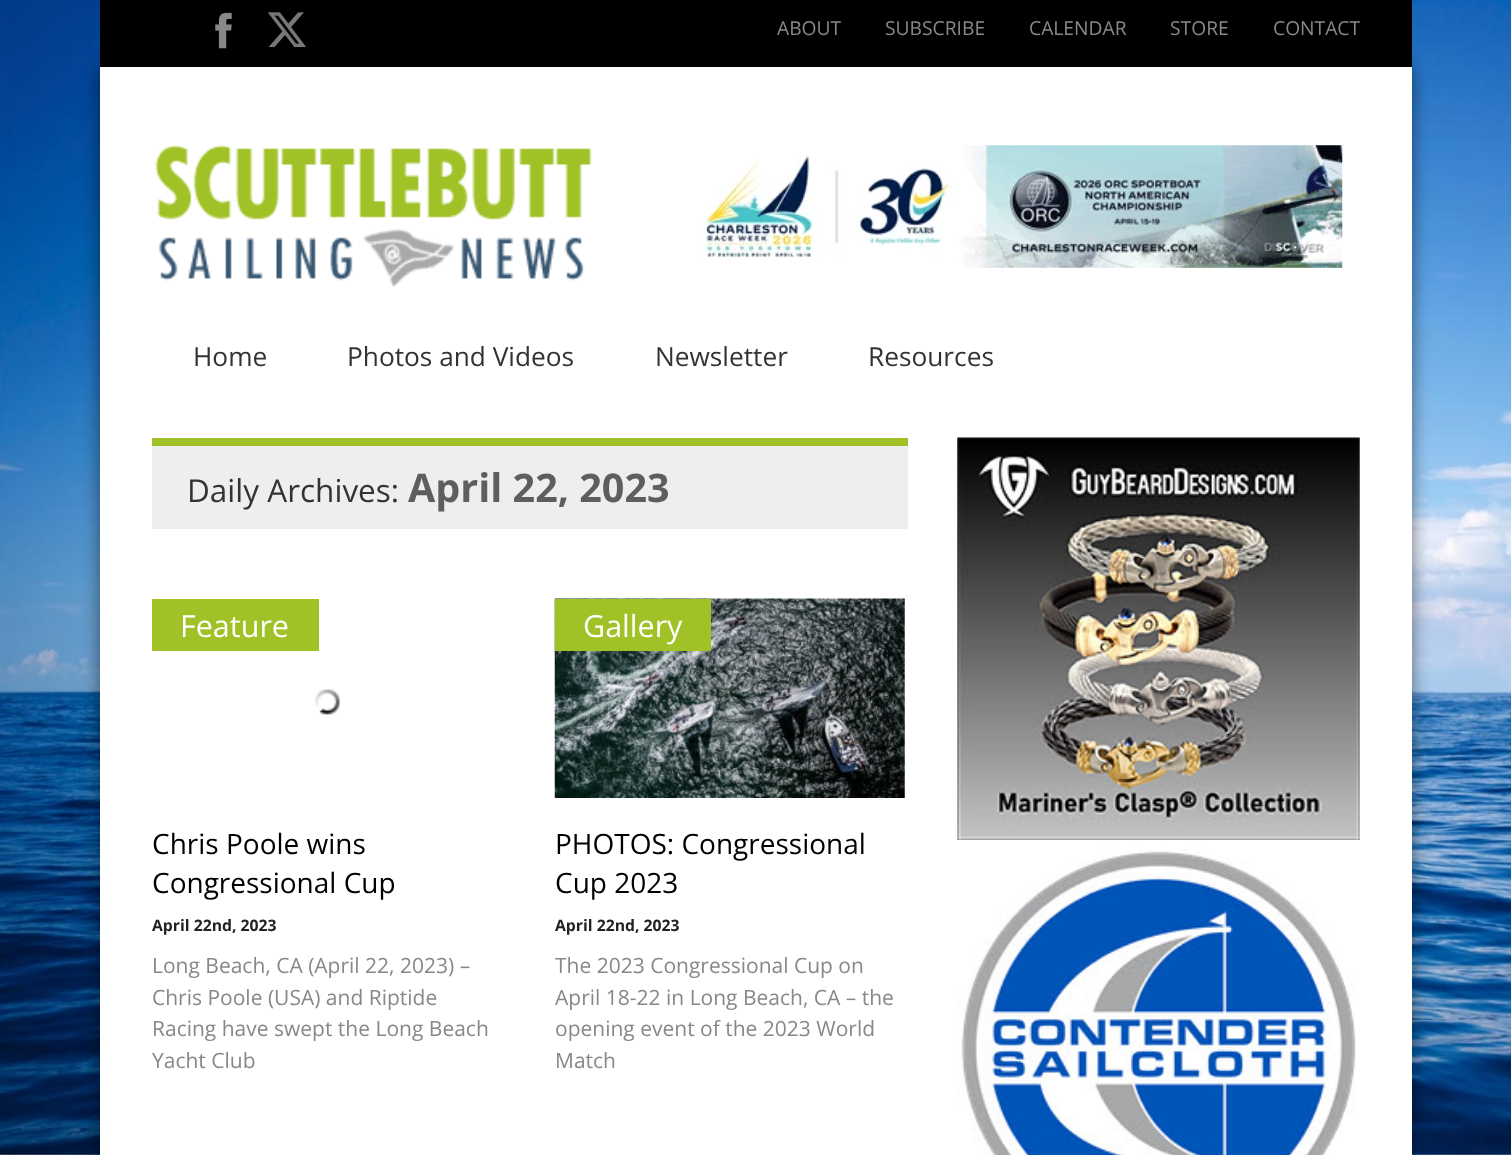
async function draw(canvas) {
  canvas.width = 1511
  canvas.height = 1155
  const ctx = canvas.getContext('2d')
  ctx.miterLimit = 4
  ctx.fontKerning = 'normal'
  async function loadImage(src) {
    const img = new Image()
    img.src = src
    await img.decode()
    return img
  }

  ctx.fillStyle = '#fff'
  ctx.fillRect(0, 0, 1511, 1155)
  ctx.drawImage(await loadImage('image0.png'), 0, 0, 1511, 1155)
  ctx.fillStyle = '#000'
  ctx.fillRect(100, 0, 1312, 67)
  ctx.fillStyle = '#00000080'
  ctx.filter = 'blur(9px)'
  ctx.beginPath()
  ctx.rect(100, 67, 1312, 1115)
  ctx.fill()
  ctx.filter = 'none'
  ctx.drawImage(await loadImage('image1.png'), 215, 12, 17, 37)
  ctx.drawImage(await loadImage('image2.png'), 268, 12, 38, 35)
  ctx.font = '19.25px Open Sans'
  ctx.fillStyle = '#888'
  ctx.fillText('ABOUT', 777, 35)
  ctx.fillText('SUBSCRIBE', 885, 35)
  ctx.fillText('CALENDAR', 1029, 35)
  ctx.fillText('STORE', 1170, 35)
  ctx.fillText('CONTACT', 1273, 35)
  ctx.fillStyle = '#fff'
  ctx.fillRect(100, 67, 1312, 1088)
  ctx.drawImage(await loadImage('image3.png'), 155, 145, 437, 142)
  ctx.drawImage(await loadImage('image4.png'), 697, 145, 646, 123)
  ctx.font = '26.25px Open Sans'
  ctx.fillStyle = '#333'
  ctx.fillText('Home', 193, 366)
  ctx.fillText('Photos and Videos', 347, 366)
  ctx.fillText('Newsletter', 655, 366)
  ctx.fillText('Resources', 868, 366)
  ctx.fillStyle = '#eee'
  ctx.fillRect(152, 446, 756, 83)
  ctx.fillStyle = '#a0c227'
  ctx.fillRect(152, 438, 756, 8)
  ctx.font = '31.5px Open Sans'
  ctx.fillStyle = '#333'
  ctx.fillText('Daily Archives:', 187, 502)
  ctx.font = 'bold 39.5px Open Sans'
  ctx.fillStyle = '#5e5e5e'
  ctx.fillText('April 22, 2023', 408, 502)
  ctx.drawImage(await loadImage('image5.png'), 314, 689, 26, 26)
  ctx.fillStyle = '#a0c227'
  ctx.fillRect(152, 599, 167, 52)
  ctx.font = '30.5px Open Sans'
  ctx.fillStyle = '#fff'
  ctx.fillText('Feature', 180, 637)
  ctx.font = '28px Open Sans'
  ctx.fillStyle = '#000'
  ctx.fillText('Chris Poole wins', 152, 854)
  ctx.fillText('Congressional Cup', 152, 893)
  ctx.font = 'bold 15.75px Open Sans'
  ctx.fillStyle = '#222'
  ctx.fillText('April 22nd, 2023', 152, 931)
  ctx.font = '21px Open Sans'
  ctx.fillStyle = '#888'
  ctx.fillText('Long Beach, CA (April 22, 2023) –', 152, 973)
  ctx.fillText('Chris Poole (USA) and Riptide', 152, 1005)
  ctx.fillText('Racing have swept the Long Beach', 152, 1036)
  ctx.fillText('Yacht Club', 152, 1068)
  ctx.drawImage(await loadImage('image6.png'), 554, 598, 351, 200)
  ctx.fillStyle = '#a0c227'
  ctx.fillRect(555, 599, 156, 52)
  ctx.font = '30.5px Open Sans'
  ctx.fillStyle = '#fff'
  ctx.fillText('Gallery', 583, 637)
  ctx.font = '28px Open Sans'
  ctx.fillStyle = '#000'
  ctx.fillText('PHOTOS: Congressional', 555, 854)
  ctx.fillText('Cup 2023', 555, 893)
  ctx.font = 'bold 15.75px Open Sans'
  ctx.fillStyle = '#222'
  ctx.fillText('April 22nd, 2023', 555, 931)
  ctx.font = '21px Open Sans'
  ctx.fillStyle = '#888'
  ctx.fillText('The 2023 Congressional Cup on', 555, 973)
  ctx.fillText('April 18-22 in Long Beach, CA – the', 555, 1005)
  ctx.fillText('opening event of the 2023 World', 555, 1036)
  ctx.fillText('Match', 555, 1068)
  ctx.drawImage(await loadImage('image7.png'), 957, 437, 403, 403)
  ctx.drawImage(await loadImage('image8.png'), 957, 847, 399, 308)
}

draw(document.querySelector('canvas'))
